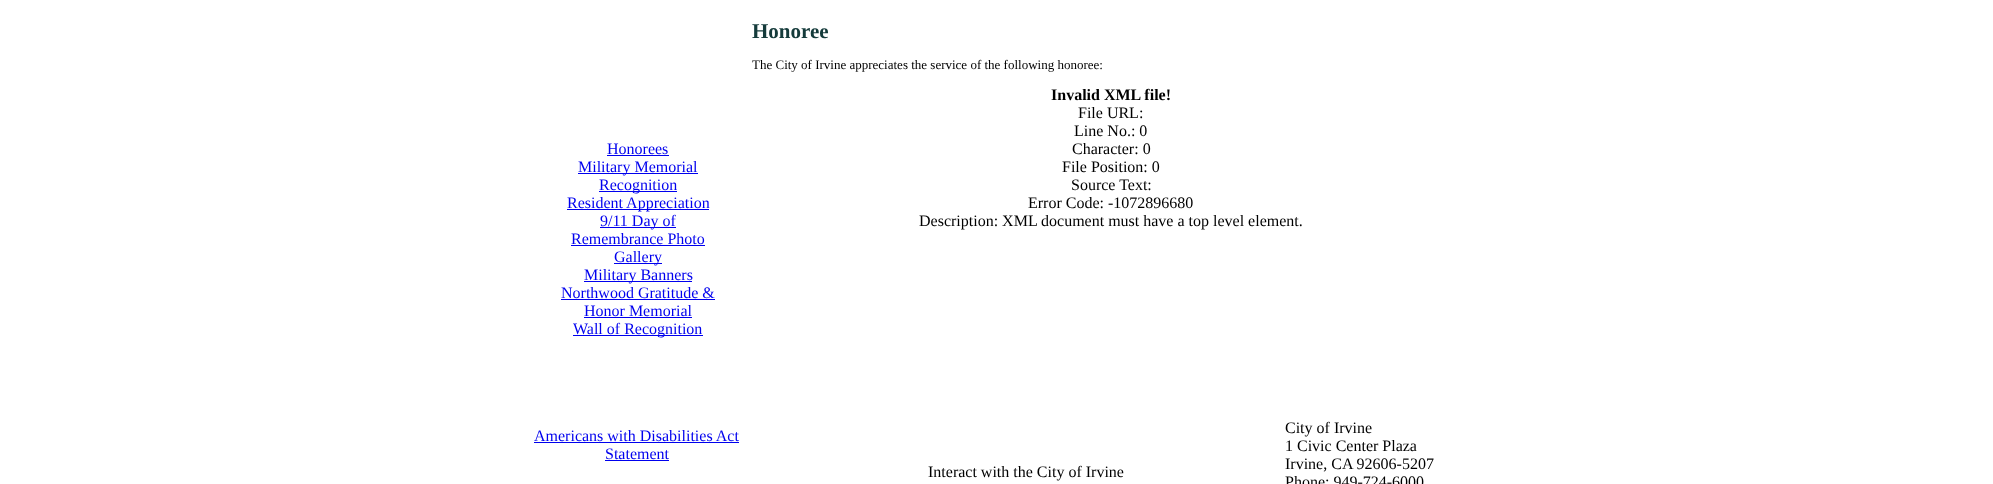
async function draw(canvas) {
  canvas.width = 1993
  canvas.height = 484
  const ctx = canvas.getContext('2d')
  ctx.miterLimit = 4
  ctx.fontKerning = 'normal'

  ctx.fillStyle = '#fff'
  ctx.fillRect(0, 0, 1993, 484)
  ctx.font = '16px Liberation Serif'
  ctx.fillStyle = '#00e'
  ctx.fillText('Honorees', 607, 154)
  ctx.fillRect(607, 155, 62, 1)
  ctx.fillRect(578, 173, 120, 1)
  ctx.fillText('Military Memorial', 578, 172)
  ctx.fillRect(599, 191, 78, 1)
  ctx.fillText('Recognition', 599, 190)
  ctx.fillRect(567, 209, 142, 1)
  ctx.fillText('Resident Appreciation', 567, 208)
  ctx.fillRect(600, 227, 76, 1)
  ctx.fillText('9/11 Day of', 600, 226)
  ctx.fillText('Remembrance Photo', 571, 244)
  ctx.fillRect(571, 245, 134, 1)
  ctx.fillRect(614, 263, 48, 1)
  ctx.fillText('Gallery', 614, 262)
  ctx.fillRect(584, 281, 108, 1)
  ctx.fillText('Military Banners', 584, 280)
  ctx.fillText('Northwood Gratitude &', 561, 298)
  ctx.fillRect(561, 299, 154, 1)
  ctx.fillText('Honor Memorial', 584, 316)
  ctx.fillRect(584, 317, 108, 1)
  ctx.fillRect(573, 335, 130, 1)
  ctx.fillText('Wall of Recognition', 573, 334)
  ctx.font = 'bold 21px Liberation Serif'
  ctx.fillStyle = '#153b3b'
  ctx.fillText('Honoree', 752, 38)
  ctx.font = '13px Liberation Serif'
  ctx.fillStyle = '#000'
  ctx.fillText('The City of Irvine appreciates the service of the following honoree:', 752, 69)
  ctx.font = 'bold 16px Liberation Serif'
  ctx.fillText('Invalid XML file!', 1051, 100)
  ctx.font = '16px Liberation Serif'
  ctx.fillText('File URL:', 1078, 118)
  ctx.fillText('Line No.: 0', 1074, 136)
  ctx.fillText('Character: 0', 1072, 154)
  ctx.fillText('File Position: 0', 1062, 172)
  ctx.fillText('Source Text:', 1071, 190)
  ctx.fillText('Error Code: -1072896680', 1028, 208)
  ctx.fillText('Description: XML document must have a top level element.', 919, 226)
  ctx.fillStyle = '#00e'
  ctx.fillText('Americans with Disabilities Act', 534, 441)
  ctx.fillRect(534, 442, 205, 1)
  ctx.fillText('Statement', 605, 459)
  ctx.fillRect(605, 460, 64, 1)
  ctx.fillStyle = '#000'
  ctx.fillText('City of Irvine', 1285, 433)
  ctx.fillText('1 Civic Center Plaza', 1285, 451)
  ctx.fillText('Irvine, CA 92606-5207', 1285, 469)
  ctx.fillText('Phone: 949-724-6000', 1285, 487)
  ctx.fillText('Interact with the City of Irvine', 928, 477)
}

draw(document.querySelector('canvas'))
